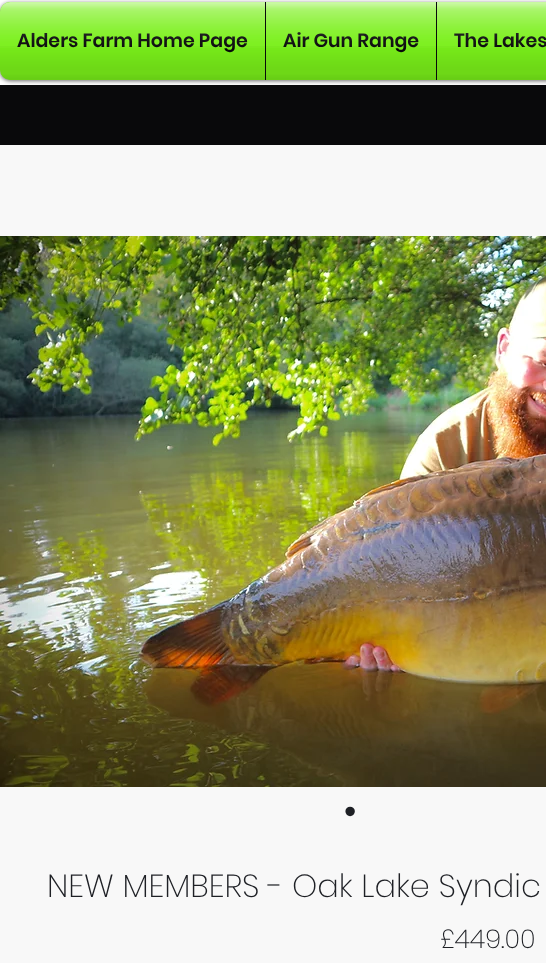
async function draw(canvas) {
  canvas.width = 546
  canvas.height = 963
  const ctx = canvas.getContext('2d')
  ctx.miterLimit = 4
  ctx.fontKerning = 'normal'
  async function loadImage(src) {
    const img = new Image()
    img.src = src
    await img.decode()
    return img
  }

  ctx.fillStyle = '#09090b'
  ctx.fillRect(0, 0, 546, 963)
  ctx.fillStyle = '#fff'
  ctx.fillRect(0, 0, 546, 85)
  ctx.fillStyle = '#00000099'
  ctx.filter = 'blur(2px)'
  ctx.beginPath()
  ctx.roundRect(0, 3, 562, 78, 10)
  ctx.fill()
  ctx.filter = 'none'
  ctx.drawImage(await loadImage('image0.png'), 0, 2, 10, 10)
  ctx.drawImage(await loadImage('image1.png'), 0, 70, 10, 10)
  ctx.fillStyle = '#7af01a'
  ctx.beginPath()
  ctx.roundRect(0, 2, 265, 78, [10, 0, 0, 10])
  ctx.fill()
  ctx.font = '600 19px Poppins'
  ctx.fillStyle = '#09090b'
  ctx.fillText('Alders Farm Home Page', 17, 47)
  ctx.drawImage(await loadImage('image2.png'), 0, 2, 265, 46)
  ctx.drawImage(await loadImage('image3.png'), 0, 46, 265, 34)
  ctx.fillStyle = '#7af01a'
  ctx.fillRect(266, 2, 170, 78)
  ctx.fillStyle = '#09090b'
  ctx.fillRect(265, 2, 1, 78)
  ctx.fillText('Air Gun Range', 283, 47)
  ctx.drawImage(await loadImage('image4.png'), 266, 2, 170, 46)
  ctx.drawImage(await loadImage('image5.png'), 266, 46, 170, 34)
  ctx.fillStyle = '#7af01a'
  ctx.fillRect(437, 2, 109, 78)
  ctx.fillStyle = '#09090b'
  ctx.fillRect(436, 2, 1, 78)
  ctx.fillText('The Lakes', 454, 47)
  ctx.drawImage(await loadImage('image6.png'), 437, 2, 109, 46)
  ctx.drawImage(await loadImage('image7.png'), 437, 46, 109, 34)
  ctx.fillStyle = '#f8f8f8'
  ctx.fillRect(0, 145, 546, 818)
  ctx.drawImage(await loadImage('image8.png'), 0, 236, 546, 551)
  ctx.font = '35px Liberation Sans'
  ctx.fillStyle = '#1e2025'
  ctx.fillText('•', 344, 823)
  ctx.font = '200 32px Poppins'
  ctx.fillText('NEW MEMBERS - Oak Lake Syndic', 47, 897)
  ctx.font = '200 26px Poppins'
  ctx.fillText('£449.00', 440, 948)
}

draw(document.querySelector('canvas'))
